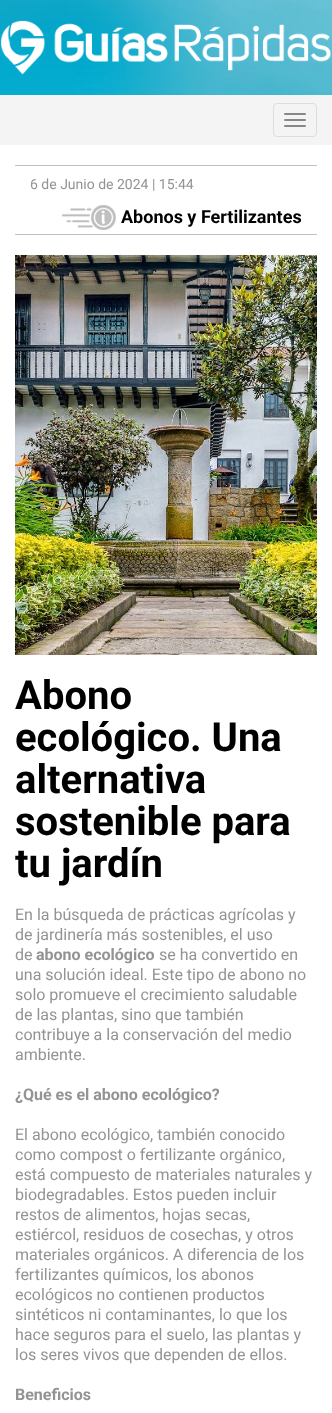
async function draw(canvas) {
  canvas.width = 332
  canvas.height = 1413
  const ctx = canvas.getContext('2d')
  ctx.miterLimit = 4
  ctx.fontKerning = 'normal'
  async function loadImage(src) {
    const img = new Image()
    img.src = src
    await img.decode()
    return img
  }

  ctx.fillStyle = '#fff'
  ctx.fillRect(0, 0, 332, 1413)
  ctx.drawImage(await loadImage('image0.png'), 0, 0, 332, 95)
  ctx.drawImage(await loadImage('image1.png'), 0, 20, 332, 55)
  ctx.fillStyle = '#f4f4f4'
  ctx.fillRect(0, 95, 332, 50)
  ctx.beginPath()
  ctx.roundRect(273.5, 103.5, 43, 33, 3.5)
  ctx.strokeStyle = '#ddd'
  ctx.stroke()
  ctx.fillStyle = '#888'
  ctx.beginPath()
  ctx.roundRect(284, 113, 22, 2, 1)
  ctx.fill()
  ctx.beginPath()
  ctx.roundRect(284, 119, 22, 2, 1)
  ctx.fill()
  ctx.beginPath()
  ctx.roundRect(284, 125, 22, 2, 1)
  ctx.fill()
  ctx.fillStyle = '#c0c0c0'
  ctx.fillRect(15, 165, 302, 1)
  ctx.fillRect(15, 234, 302, 1)
  ctx.font = '14px Roboto'
  ctx.fillStyle = '#939393'
  ctx.fillText('6 de Junio de 2024 | 15:44', 30, 189)
  ctx.drawImage(await loadImage('image2.png'), 62, 205, 54, 25)
  ctx.font = 'bold 18px Roboto'
  ctx.fillStyle = '#000'
  ctx.fillText('Abonos y Fertilizantes', 121, 223)
  ctx.drawImage(await loadImage('image3.png'), 15, 255, 302, 400)
  ctx.font = 'bold 40px Roboto'
  ctx.fillText('Abono', 15, 709)
  ctx.fillText('ecológico. Una', 15, 751)
  ctx.fillText('alternativa', 15, 793)
  ctx.fillText('sostenible para', 15, 835)
  ctx.fillText('tu jardín', 15, 877)
  ctx.font = '16px Roboto'
  ctx.fillStyle = '#939393'
  ctx.fillText('En la búsqueda de prácticas agrícolas y', 15, 920)
  ctx.fillText('de jardinería más sostenibles, el uso', 15, 940)
  ctx.fillText('de', 15, 960)
  ctx.font = 'bold 16px Roboto'
  ctx.fillText('abono ecológico', 36, 960)
  ctx.font = '16px Roboto'
  ctx.fillText('se ha convertido en', 159, 960)
  ctx.fillText('una solución ideal. Este tipo de abono no', 15, 980)
  ctx.fillText('solo promueve el crecimiento saludable', 15, 1000)
  ctx.fillText('de las plantas, sino que también', 15, 1020)
  ctx.fillText('contribuye a la conservación del medio', 15, 1040)
  ctx.fillText('ambiente.', 15, 1060)
  ctx.font = 'bold 16px Roboto'
  ctx.fillText('¿Qué es el abono ecológico?', 15, 1100)
  ctx.font = '16px Roboto'
  ctx.fillText('El abono ecológico, también conocido', 15, 1140)
  ctx.fillText('como compost o fertilizante orgánico,', 15, 1160)
  ctx.fillText('está compuesto de materiales naturales y', 15, 1180)
  ctx.fillText('biodegradables. Estos pueden incluir', 15, 1200)
  ctx.fillText('restos de alimentos, hojas secas,', 15, 1220)
  ctx.fillText('estiércol, residuos de cosechas, y otros', 15, 1240)
  ctx.fillText('materiales orgánicos. A diferencia de los', 15, 1260)
  ctx.fillText('fertilizantes químicos, los abonos', 15, 1280)
  ctx.fillText('ecológicos no contienen productos', 15, 1300)
  ctx.fillText('sintéticos ni contaminantes, lo que los', 15, 1320)
  ctx.fillText('hace seguros para el suelo, las plantas y', 15, 1340)
  ctx.fillText('los seres vivos que dependen de ellos.', 15, 1360)
  ctx.font = 'bold 16px Roboto'
  ctx.fillText('Beneficios', 15, 1400)
}

draw(document.querySelector('canvas'))
